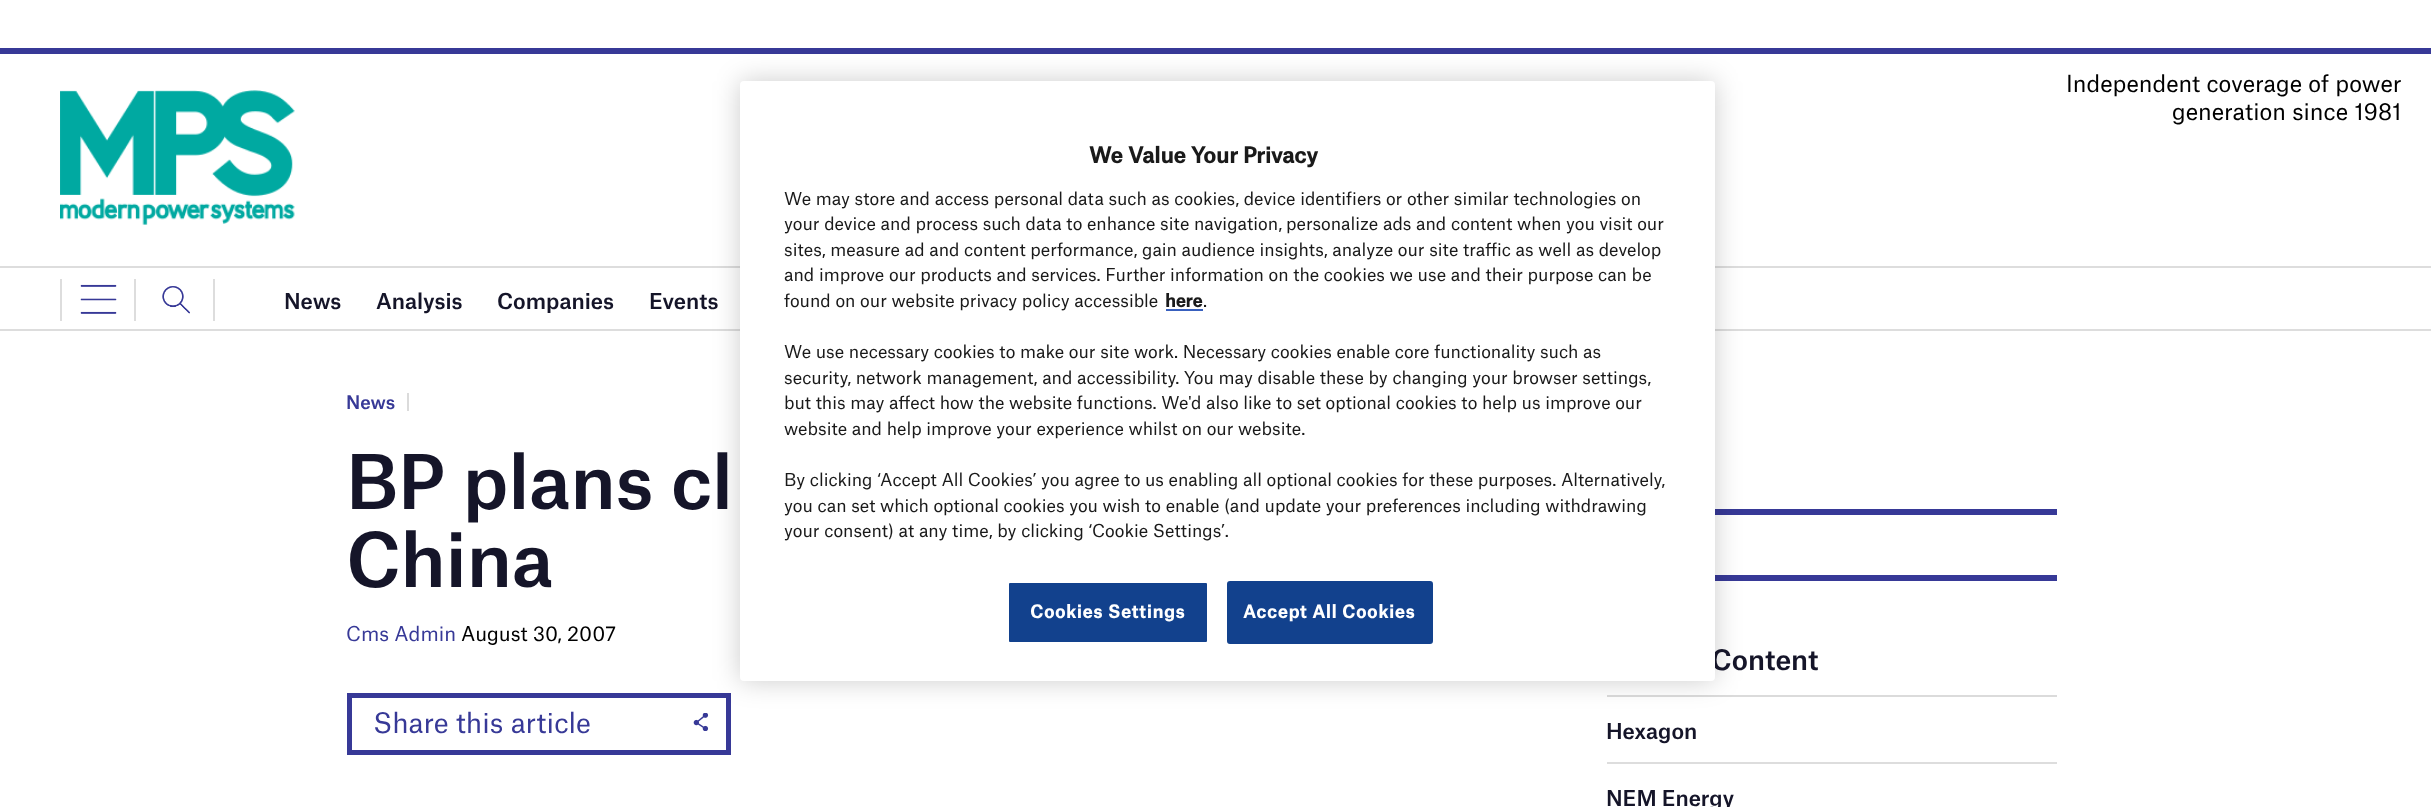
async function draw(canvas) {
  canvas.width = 2431
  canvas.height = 807
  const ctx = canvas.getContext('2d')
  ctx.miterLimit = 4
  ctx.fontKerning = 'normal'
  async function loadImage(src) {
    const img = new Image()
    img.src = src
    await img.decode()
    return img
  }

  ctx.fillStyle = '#fff'
  ctx.fillRect(0, 0, 2431, 807)
  ctx.fillStyle = '#373997'
  ctx.fillRect(0, 48, 2431, 6)
  ctx.drawImage(await loadImage('image0.png'), 60, 90, 235, 135)
  ctx.font = '22.5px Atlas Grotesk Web'
  ctx.fillStyle = '#000'
  ctx.fillText('Independent coverage of power', 2066, 92)
  ctx.fillText('generation since 1981', 2172, 120)
  ctx.fillStyle = '#ddd'
  ctx.fillRect(0, 266, 2431, 2)
  ctx.fillRect(0, 329, 2431, 2)
  ctx.drawImage(await loadImage('image1.png'), 80, 284, 37, 30)
  ctx.fillRect(134, 279, 2, 42)
  ctx.fillRect(60, 279, 2, 42)
  ctx.drawImage(await loadImage('image2.png'), 162, 286, 28, 28)
  ctx.fillRect(213, 279, 2, 42)
  ctx.font = '500 21px Atlas Grotesk Web'
  ctx.fillStyle = '#151529'
  ctx.fillText('News', 284, 309)
  ctx.fillText('Analysis', 376, 309)
  ctx.fillText('Companies', 497, 309)
  ctx.fillText('Events', 649, 309)
  ctx.strokeStyle = '#373997'
  ctx.lineWidth = 5
  ctx.strokeRect(349.5, 695.5, 379, 57)
  ctx.drawImage(await loadImage('image3.png'), 693, 713, 16, 18)
  ctx.fillStyle = '#373997'
  ctx.fillRect(1715, 509, 342, 6)
  ctx.fillRect(1715, 575, 342, 6)
  ctx.fillStyle = '#dbdbdb'
  ctx.fillRect(1607, 695, 450, 2)
  ctx.fillStyle = '#00000033'
  ctx.filter = 'blur(13.5px)'
  ctx.beginPath()
  ctx.roundRect(740, 81, 975, 600, 4)
  ctx.fill()
  ctx.filter = 'none'
  ctx.font = '500 27px Atlas Grotesk Web'
  ctx.fillStyle = '#151529'
  ctx.fillText('Content', 1711, 670)
  ctx.fillStyle = '#fff'
  ctx.beginPath()
  ctx.roundRect(740, 81, 975, 600, 4)
  ctx.fill()
  ctx.font = 'bold 21px Atlas Grotesk Web'
  ctx.fillStyle = '#1a1a1a'
  ctx.fillText('We Value Your Privacy', 1089, 163)
  ctx.font = '17.07px Atlas Grotesk Web'
  ctx.fillText('We may store and access personal data such as cookies, device identifiers or other similar technologies on', 784, 205)
  ctx.fillText('your device and process such data to enhance site navigation,', 784, 230)
  ctx.fillText('personalize ads and content when you visit our', 1286, 230)
  ctx.fillText('sites, measure ad and content performance, gain audience insights, analyze our site traffic as well as develop', 784, 256)
  ctx.fillText('and improve our products and services. Further information on the cookies we use and their purpose can be', 784, 281)
  ctx.fillText('found on our website privacy policy accessible', 784, 307)
  ctx.font = 'bold 17.07px Atlas Grotesk Web'
  ctx.fillText('here', 1165, 307)
  ctx.fillStyle = '#3860be'
  ctx.fillRect(1166, 309, 37, 2)
  ctx.font = '17.07px Atlas Grotesk Web'
  ctx.fillStyle = '#1a1a1a'
  ctx.fillText('.', 1203, 307)
  ctx.fillText('We use necessary cookies to make our site work. Necessary cookies enable core functionality such as', 784, 358)
  ctx.fillText('security, network management, and accessibility. You may disable these by changing your browser settings,', 784, 384)
  ctx.fillText('but this may affect how the website functions. We\'d also like to set optional cookies to help us improve our', 784, 409)
  ctx.fillText('website and help improve your experience whilst on our website.', 784, 435)
  ctx.fillText('By clicking ‘Accept All Cookies’ you agree to us enabling all optional cookies for these purposes. Alternatively,', 784, 486)
  ctx.fillText('you can set which optional cookies you wish to enable (and update your preferences including withdrawing', 784, 512)
  ctx.fillText('your consent) at any time, by clicking ‘Cookie Settings’.', 784, 537)
  ctx.fillStyle = '#12418d'
  ctx.beginPath()
  ctx.roundRect(1008, 582, 200, 61, 2)
  ctx.fill()
  ctx.strokeStyle = '#fff'
  ctx.lineWidth = 2
  ctx.stroke()
  ctx.letterSpacing = '0.8px'
  ctx.font = 'bold 17.07px Atlas Grotesk Web'
  ctx.fillStyle = '#fff'
  ctx.fillText('Cookies Settings', 1030, 618)
  ctx.fillStyle = '#12418d'
  ctx.beginPath()
  ctx.roundRect(1228, 582, 204, 61, 2)
  ctx.fill()
  ctx.strokeStyle = '#12418d'
  ctx.stroke()
  ctx.fillStyle = '#fff'
  ctx.fillText('Accept All Cookies', 1243, 618)
  ctx.letterSpacing = '0px'
  ctx.font = '500 18px Atlas Grotesk Web'
  ctx.fillStyle = '#373997'
  ctx.fillText('News', 346, 409)
  ctx.fillStyle = '#dbdbdb'
  ctx.fillRect(407, 393, 2, 18)
  ctx.font = '500 72px Atlas Grotesk Web'
  ctx.fillStyle = '#151529'
  ctx.fillText('BP plans cl', 346, 509)
  ctx.fillText('China', 346, 587)
  ctx.font = '19.5px Atlas Grotesk Web'
  ctx.fillStyle = '#373997'
  ctx.fillText('Cms Admin', 346, 641)
  ctx.fillStyle = '#000'
  ctx.fillText('August 30, 2007', 461, 641)
  ctx.font = '27px Atlas Grotesk Web'
  ctx.fillStyle = '#373997'
  ctx.fillText('Share this article', 373, 733)
  ctx.fillStyle = '#ddd'
  ctx.fillRect(1607, 762, 450, 2)
  ctx.font = '500 21px Atlas Grotesk Web'
  ctx.fillStyle = '#151529'
  ctx.fillText('Hexagon', 1606, 739)
  ctx.fillText('NEM Energy', 1606, 806)
}

draw(document.querySelector('canvas'))
